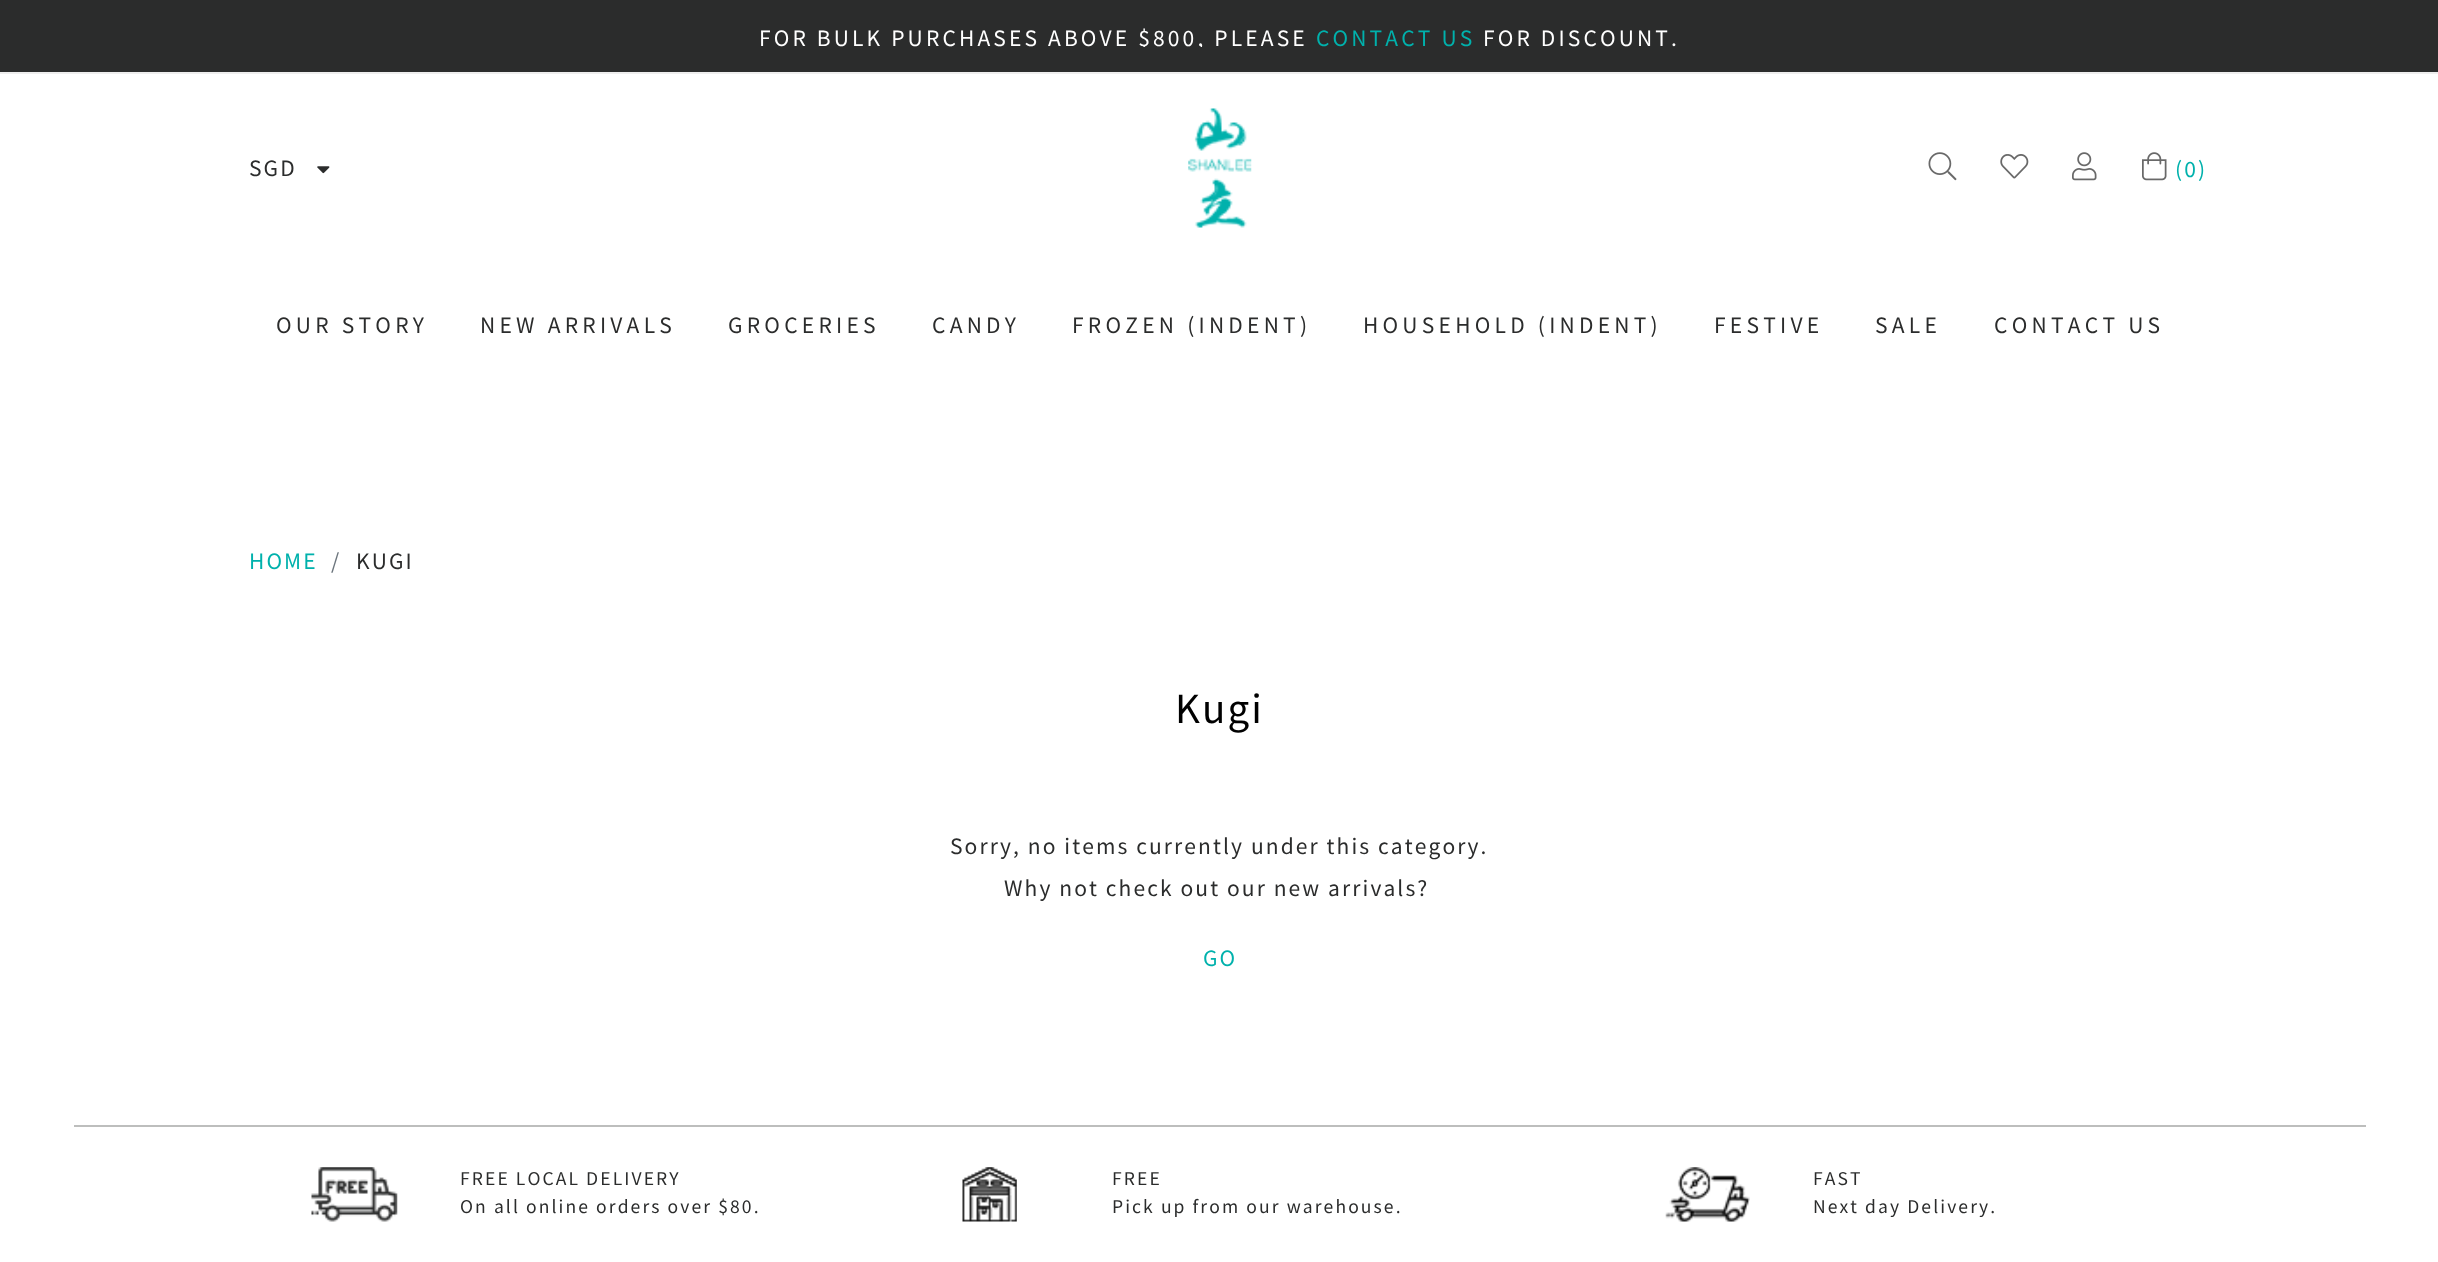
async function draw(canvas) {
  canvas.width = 2438
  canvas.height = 1262
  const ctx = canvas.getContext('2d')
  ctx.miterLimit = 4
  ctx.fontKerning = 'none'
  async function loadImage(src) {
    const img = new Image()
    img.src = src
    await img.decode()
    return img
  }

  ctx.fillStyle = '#fff'
  ctx.fillRect(0, 0, 2438, 1262)
  ctx.fillStyle = '#2b2c2c'
  ctx.fillRect(0, 0, 2438, 72)
  ctx.fillStyle = '#eee'
  ctx.fillRect(0, 72, 2438, 2)
  ctx.save()
  ctx.beginPath()
  ctx.rect(249, 25, 1942, 22)
  ctx.clip()
  ctx.letterSpacing = '3.15px'
  ctx.font = '100 21px Noto Sans SC'
  ctx.fillStyle = '#fff'
  ctx.fillText('FOR BULK PURCHASES ABOVE $800, PLEASE', 759, 46)
  ctx.restore()
  ctx.letterSpacing = '3.15px'
  ctx.font = '100 21px Noto Sans SC'
  ctx.fillStyle = '#00b1ac'
  ctx.fillText('CONTACT US', 1316, 46)
  ctx.fillStyle = '#fff'
  ctx.fillText('FOR DISCOUNT.', 1483, 46)
  ctx.letterSpacing = '2.1px'
  ctx.fillStyle = '#2b2c2c'
  ctx.fillText('SGD', 249, 176)
  ctx.drawImage(await loadImage('image0.png'), 317, 166, 13, 8)
  ctx.drawImage(await loadImage('image1.png'), 1188, 108, 64, 120)
  ctx.drawImage(await loadImage('image2.png'), 1928, 152, 29, 29)
  ctx.drawImage(await loadImage('image3.png'), 2000, 154, 29, 25)
  ctx.drawImage(await loadImage('image4.png'), 2072, 152, 25, 29)
  ctx.drawImage(await loadImage('image5.png'), 2142, 152, 25, 29)
  ctx.fillStyle = '#00b1ac'
  ctx.fillText('(0)', 2175, 177)
  ctx.letterSpacing = '4.25px'
  ctx.fillStyle = '#2b2c2c'
  ctx.fillText('OUR STORY', 276, 333)
  ctx.fillText('NEW ARRIVALS', 480, 333)
  ctx.fillText('GROCERIES', 728, 333)
  ctx.fillText('CANDY', 932, 333)
  ctx.fillText('FROZEN (INDENT)', 1072, 333)
  ctx.fillText('HOUSEHOLD (INDENT)', 1363, 333)
  ctx.fillText('FESTIVE', 1714, 333)
  ctx.fillText('SALE', 1875, 333)
  ctx.fillText('CONTACT US', 1994, 333)
  ctx.letterSpacing = '2.1px'
  ctx.fillStyle = '#00b1ac'
  ctx.fillText('HOME', 249, 569)
  ctx.fillStyle = '#6c757d'
  ctx.fillText('/', 331, 569)
  ctx.fillStyle = '#2b2c2c'
  ctx.fillText('KUGI', 356, 569)
  ctx.font = '100 38.5px Noto Sans SC'
  ctx.fillStyle = '#000'
  ctx.fillText('Kugi', 1175, 723)
  ctx.font = '100 21px Noto Sans SC'
  ctx.fillStyle = '#2b2c2c'
  ctx.fillText('Sorry, no items currently under this category.', 950, 854)
  ctx.fillText('Why not check out our new arrivals?', 1004, 896)
  ctx.fillStyle = '#00b1ac'
  ctx.fillText('GO', 1203, 966)
  ctx.fillStyle = '#bdbebd'
  ctx.fillRect(74, 1125, 2292, 2)
  ctx.drawImage(await loadImage('image6.png'), 311, 1167, 87, 55)
  ctx.font = '100 17.5px Noto Sans SC'
  ctx.fillStyle = '#2b2c2c'
  ctx.fillText('FREE LOCAL DELIVERY', 460, 1185)
  ctx.fillText('On all online orders over $80.', 460, 1213)
  ctx.drawImage(await loadImage('image7.png'), 962, 1167, 55, 55)
  ctx.fillText('FREE', 1112, 1185)
  ctx.fillText('Pick up from our warehouse.', 1112, 1213)
  ctx.drawImage(await loadImage('image8.png'), 1665, 1167, 85, 55)
  ctx.fillText('FAST', 1813, 1185)
  ctx.fillText('Next day Delivery.', 1813, 1213)
}

draw(document.querySelector('canvas'))
